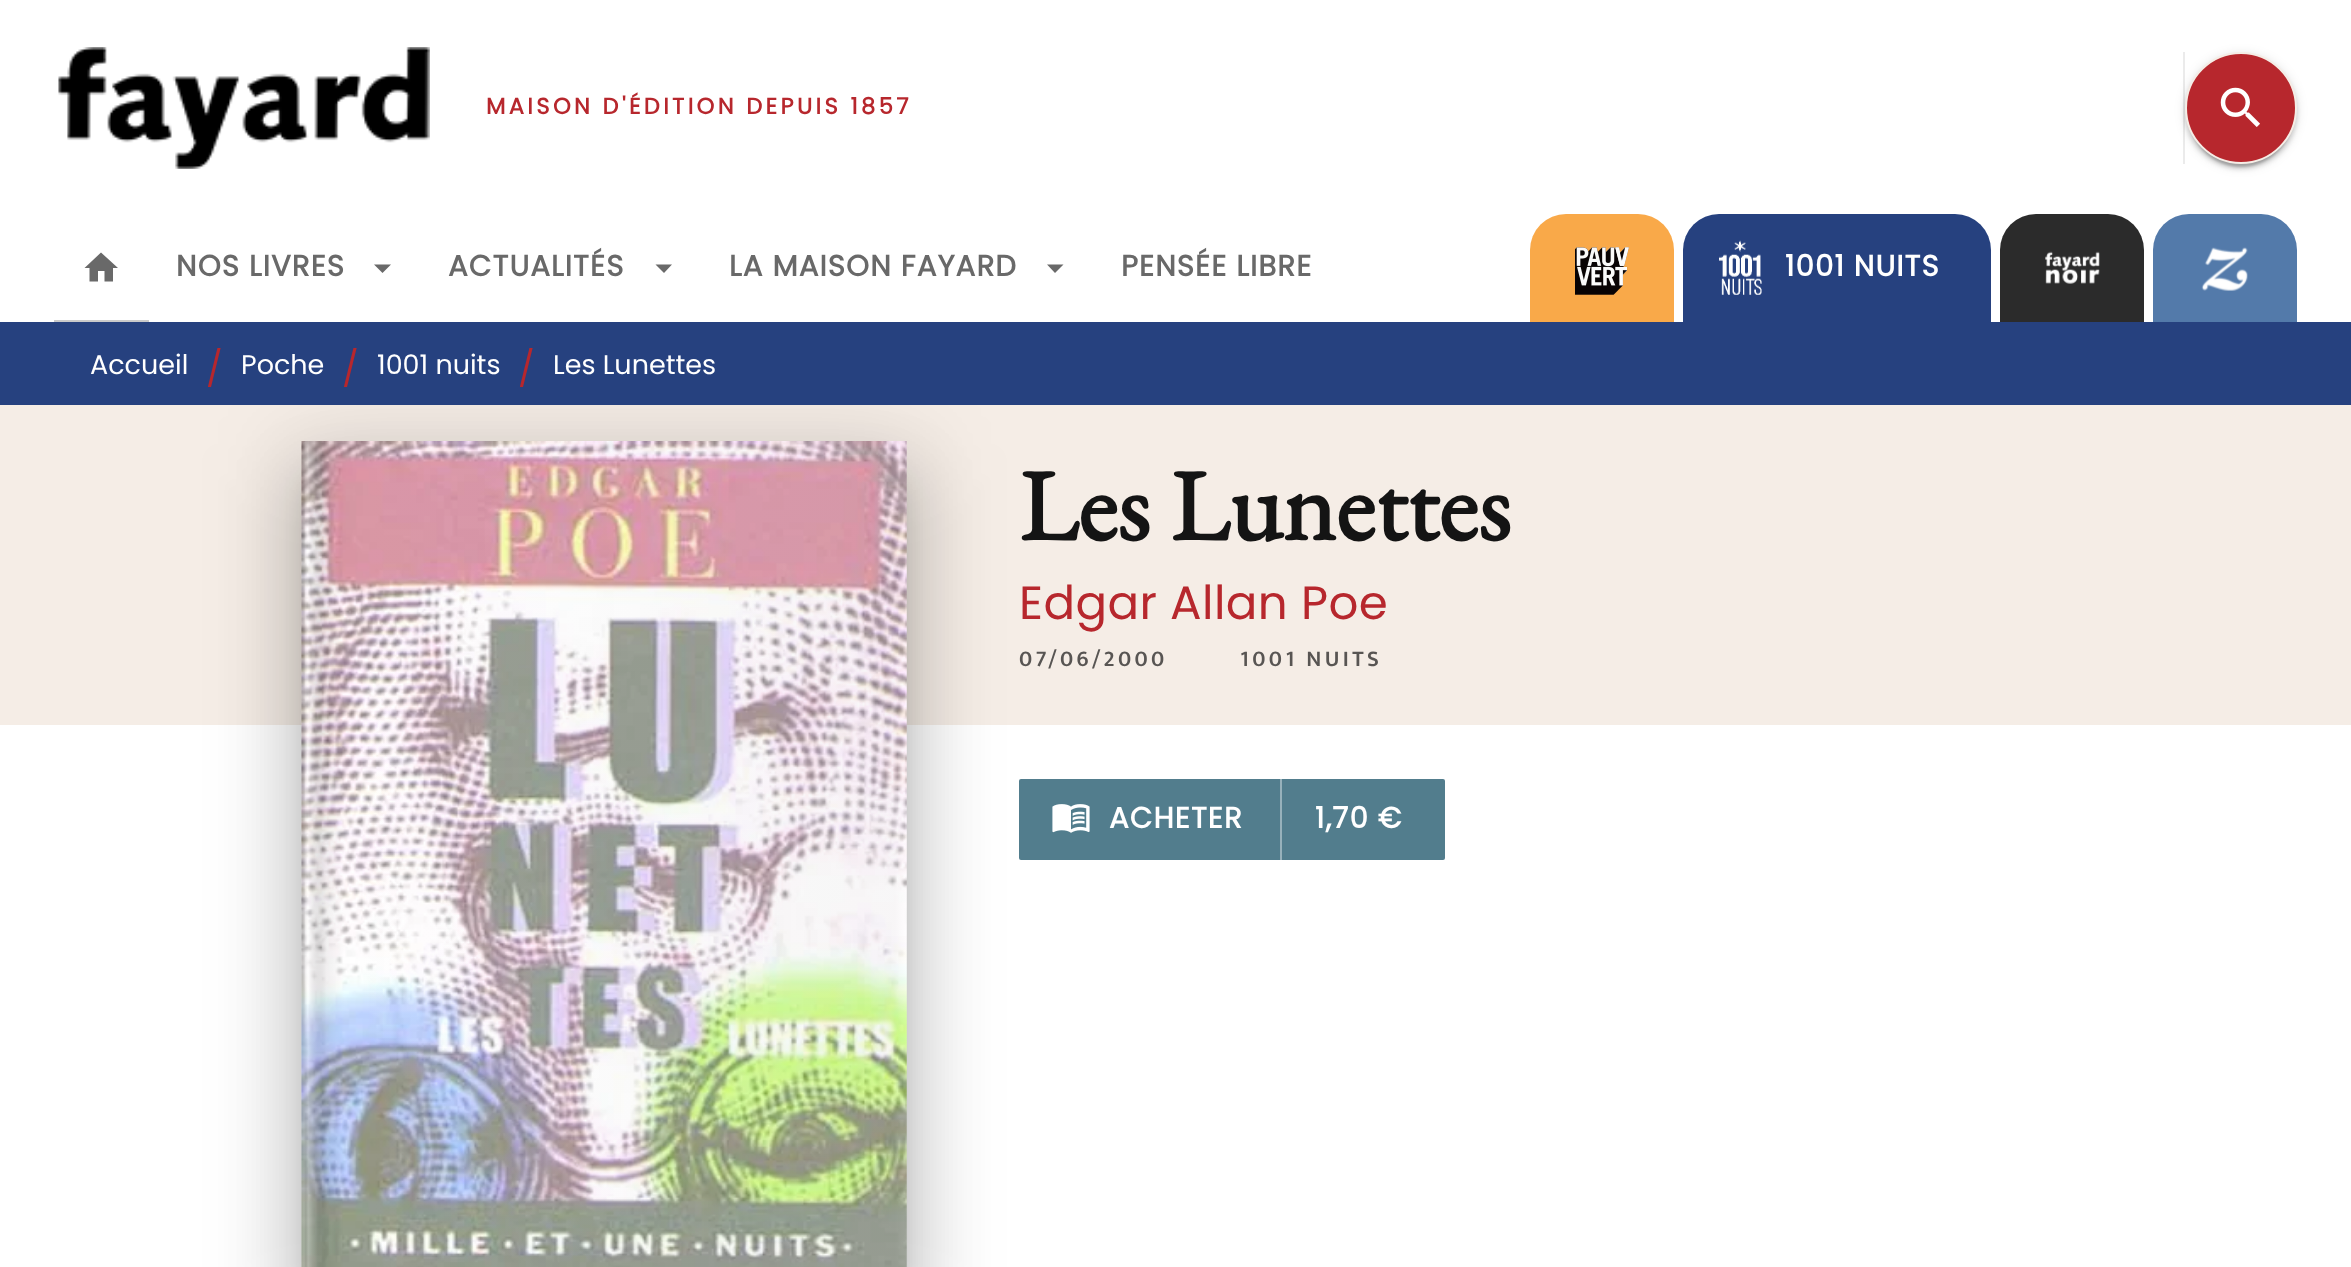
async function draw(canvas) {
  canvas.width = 2351
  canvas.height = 1267
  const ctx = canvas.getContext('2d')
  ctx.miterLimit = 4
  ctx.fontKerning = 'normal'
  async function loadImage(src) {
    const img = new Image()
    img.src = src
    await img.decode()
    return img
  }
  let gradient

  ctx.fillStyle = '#fff'
  ctx.fillRect(0, 0, 2351, 1267)
  ctx.drawImage(await loadImage('image0.png'), 58, 47, 372, 122)
  ctx.letterSpacing = '3.4px'
  ctx.font = 'bold 22.5px Poppins'
  ctx.fillStyle = '#b7272d'
  ctx.fillText('MAISON D\'ÉDITION DEPUIS 1857', 486, 114)
  ctx.fillStyle = '#ebebeb'
  ctx.fillRect(2183, 52, 2, 112)
  ctx.fillStyle = '#0000001f'
  ctx.filter = 'blur(5.5px)'
  ctx.beginPath()
  ctx.roundRect(2185, 54, 112, 113, 56)
  ctx.fill()
  ctx.filter = 'none'
  ctx.fillStyle = '#00000024'
  ctx.filter = 'blur(2px)'
  ctx.beginPath()
  ctx.roundRect(2185, 56, 112, 113, 56)
  ctx.fill()
  ctx.filter = 'none'
  ctx.fillStyle = '#00000033'
  ctx.filter = 'blur(1px)'
  ctx.beginPath()
  ctx.roundRect(2189, 63, 104, 104, 52)
  ctx.fill()
  ctx.filter = 'none'
  ctx.fillStyle = '#b7272d'
  ctx.beginPath()
  ctx.arc(2241, 108, 55, 0, 2 * Math.PI)
  ctx.fill()
  ctx.strokeStyle = '#f5ede6'
  ctx.lineWidth = 2
  ctx.stroke()
  ctx.drawImage(await loadImage('image1.png'), 2220, 87, 40, 40)
  ctx.fillStyle = '#696969'
  ctx.beginPath()
  ctx.moveTo(98, 281.5)
  ctx.lineTo(89.5, 281.5)
  ctx.lineTo(89.5, 268)
  ctx.lineTo(84.5, 268)
  ctx.lineTo(101, 252.5)
  ctx.lineTo(118, 268)
  ctx.lineTo(113, 268)
  ctx.lineTo(113, 281.5)
  ctx.lineTo(104.5, 281.5)
  ctx.lineTo(104.5, 271)
  ctx.lineTo(98, 271)
  ctx.closePath()
  ctx.fill()
  ctx.fillStyle = '#cacaca'
  ctx.fillRect(54, 320, 95, 2)
  ctx.letterSpacing = '1.1px'
  ctx.font = 'bold 29.25px Poppins'
  ctx.fillStyle = '#696969'
  ctx.fillText('NOS LIVRES', 176, 276)
  ctx.beginPath()
  ctx.moveTo(374, 264.5)
  ctx.lineTo(391, 264.5)
  ctx.lineTo(382.5, 273)
  ctx.closePath()
  ctx.fill()
  ctx.fillText('ACTUALITÉS', 448, 276)
  ctx.beginPath()
  ctx.moveTo(655.5, 264.5)
  ctx.lineTo(672, 264.5)
  ctx.lineTo(664, 273)
  ctx.closePath()
  ctx.fill()
  ctx.fillText('LA MAISON FAYARD', 729, 276)
  ctx.beginPath()
  ctx.moveTo(1047, 264.5)
  ctx.lineTo(1063.5, 264.5)
  ctx.lineTo(1055, 273)
  ctx.closePath()
  ctx.fill()
  ctx.fillText('PENSÉE LIBRE', 1121, 276)
  ctx.fillStyle = '#f9a949'
  ctx.beginPath()
  ctx.roundRect(1530, 214, 144, 108, [36, 36, 0, 0])
  ctx.fill()
  ctx.drawImage(await loadImage('image2.png'), 1575, 247, 54, 48)
  ctx.fillStyle = '#26417f'
  ctx.beginPath()
  ctx.roundRect(1683, 214, 308, 108, [36, 36, 0, 0])
  ctx.fill()
  ctx.drawImage(await loadImage('image3.png'), 1719, 240, 43, 55)
  ctx.fillStyle = '#fff'
  ctx.fillText('1001 NUITS', 1785, 276)
  ctx.fillStyle = '#2b2b2b'
  ctx.beginPath()
  ctx.roundRect(2000, 214, 144, 108, [36, 36, 0, 0])
  ctx.fill()
  ctx.drawImage(await loadImage('image4.png'), 2045, 251, 55, 33)
  ctx.fillStyle = '#537aaa'
  ctx.beginPath()
  ctx.roundRect(2153, 214, 144, 108, [36, 36, 0, 0])
  ctx.fill()
  ctx.drawImage(await loadImage('image5.png'), 2201, 247, 47, 44)
  ctx.fillStyle = '#26417f'
  ctx.fillRect(0, 322, 2351, 83)
  ctx.letterSpacing = '0px'
  ctx.font = '27px Poppins'
  ctx.fillStyle = '#fff'
  ctx.fillText('Accueil', 90, 374)
  ctx.font = '35px Poppins'
  ctx.fillStyle = '#b7272d'
  ctx.fillText('/', 206, 381)
  ctx.font = '27px Poppins'
  ctx.fillStyle = '#fff'
  ctx.fillText('Poche', 241, 374)
  ctx.font = '35px Poppins'
  ctx.fillStyle = '#b7272d'
  ctx.fillText('/', 342, 381)
  ctx.font = '27px Poppins'
  ctx.fillStyle = '#fff'
  ctx.fillText('1001 nuits', 377, 374)
  ctx.font = '35px Poppins'
  ctx.fillStyle = '#b7272d'
  ctx.fillText('/', 518, 381)
  ctx.font = '27px Poppins'
  ctx.fillStyle = '#fff'
  ctx.fillText('Les Lunettes', 553, 374)
  ctx.fillStyle = '#f5ede6'
  ctx.fillRect(0, 405, 2351, 320)
  ctx.fillStyle = '#527d8d'
  ctx.beginPath()
  ctx.roundRect(1019, 779, 426, 81, 2)
  ctx.fill()
  ctx.drawImage(await loadImage('image7.png'), 1052, 804, 38, 29)
  ctx.save()
  ctx.beginPath()
  ctx.rect(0, 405, 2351, 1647)
  ctx.clip()
  ctx.fillStyle = '#0000001f'
  ctx.filter = 'blur(43px)'
  ctx.beginPath()
  ctx.roundRect(286, 443, 637, 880, 20)
  ctx.fill()
  ctx.filter = 'none'
  ctx.restore()
  ctx.fillStyle = '#00000024'
  ctx.filter = 'blur(35px)'
  ctx.beginPath()
  ctx.roundRect(295, 479, 619, 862, 11)
  ctx.fill()
  ctx.filter = 'none'
  ctx.fillStyle = '#00000033'
  ctx.filter = 'blur(14.5px)'
  ctx.beginPath()
  ctx.rect(315, 477, 578, 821)
  ctx.fill()
  ctx.filter = 'none'
  ctx.drawImage(await loadImage('image6.png'), 301, 441, 606, 826)
  gradient = ctx.createLinearGradient(302, 865, 907, 865)
  gradient.addColorStop(0, '#ffffff4d')
  gradient.addColorStop(0, '#a9a9a92e')
  gradient.addColorStop(0.01, '#ffffff5c')
  gradient.addColorStop(0.04, '#0505050f')
  gradient.addColorStop(0.07, '#05050500')
  gradient.addColorStop(0.07, '#7f7f7f00')
  gradient.addColorStop(0.98, '#7f7f7f0f')
  gradient.addColorStop(1, '#ffffff0f')
  ctx.fillStyle = gradient
  ctx.beginPath()
  ctx.roundRect(302, 441, 605, 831, 5)
  ctx.fill()
  ctx.font = 'bold 101px EB Garamond'
  ctx.fillStyle = '#141414'
  ctx.fillText('Les Lunettes', 1019, 540)
  ctx.letterSpacing = '0.4px'
  ctx.font = '46.75px Poppins'
  ctx.fillStyle = '#b7272d'
  ctx.fillText('Edgar Allan Poe', 1019, 619)
  ctx.letterSpacing = '3.4px'
  ctx.font = '600 22.5px Mukta'
  ctx.fillStyle = '#585553'
  ctx.fillText('07/06/2000', 1019, 666)
  ctx.fillText('1001 NUITS', 1240, 666)
  ctx.letterSpacing = '1.1px'
  ctx.font = 'bold 29.25px Poppins'
  ctx.fillStyle = '#fff'
  ctx.fillText('ACHETER', 1109, 828)
  ctx.fillStyle = '#97b1bb'
  ctx.fillRect(1280, 779, 2, 81)
  ctx.fillStyle = '#fff'
  ctx.fillText('1,70 €', 1315, 828)
}

draw(document.querySelector('canvas'))
